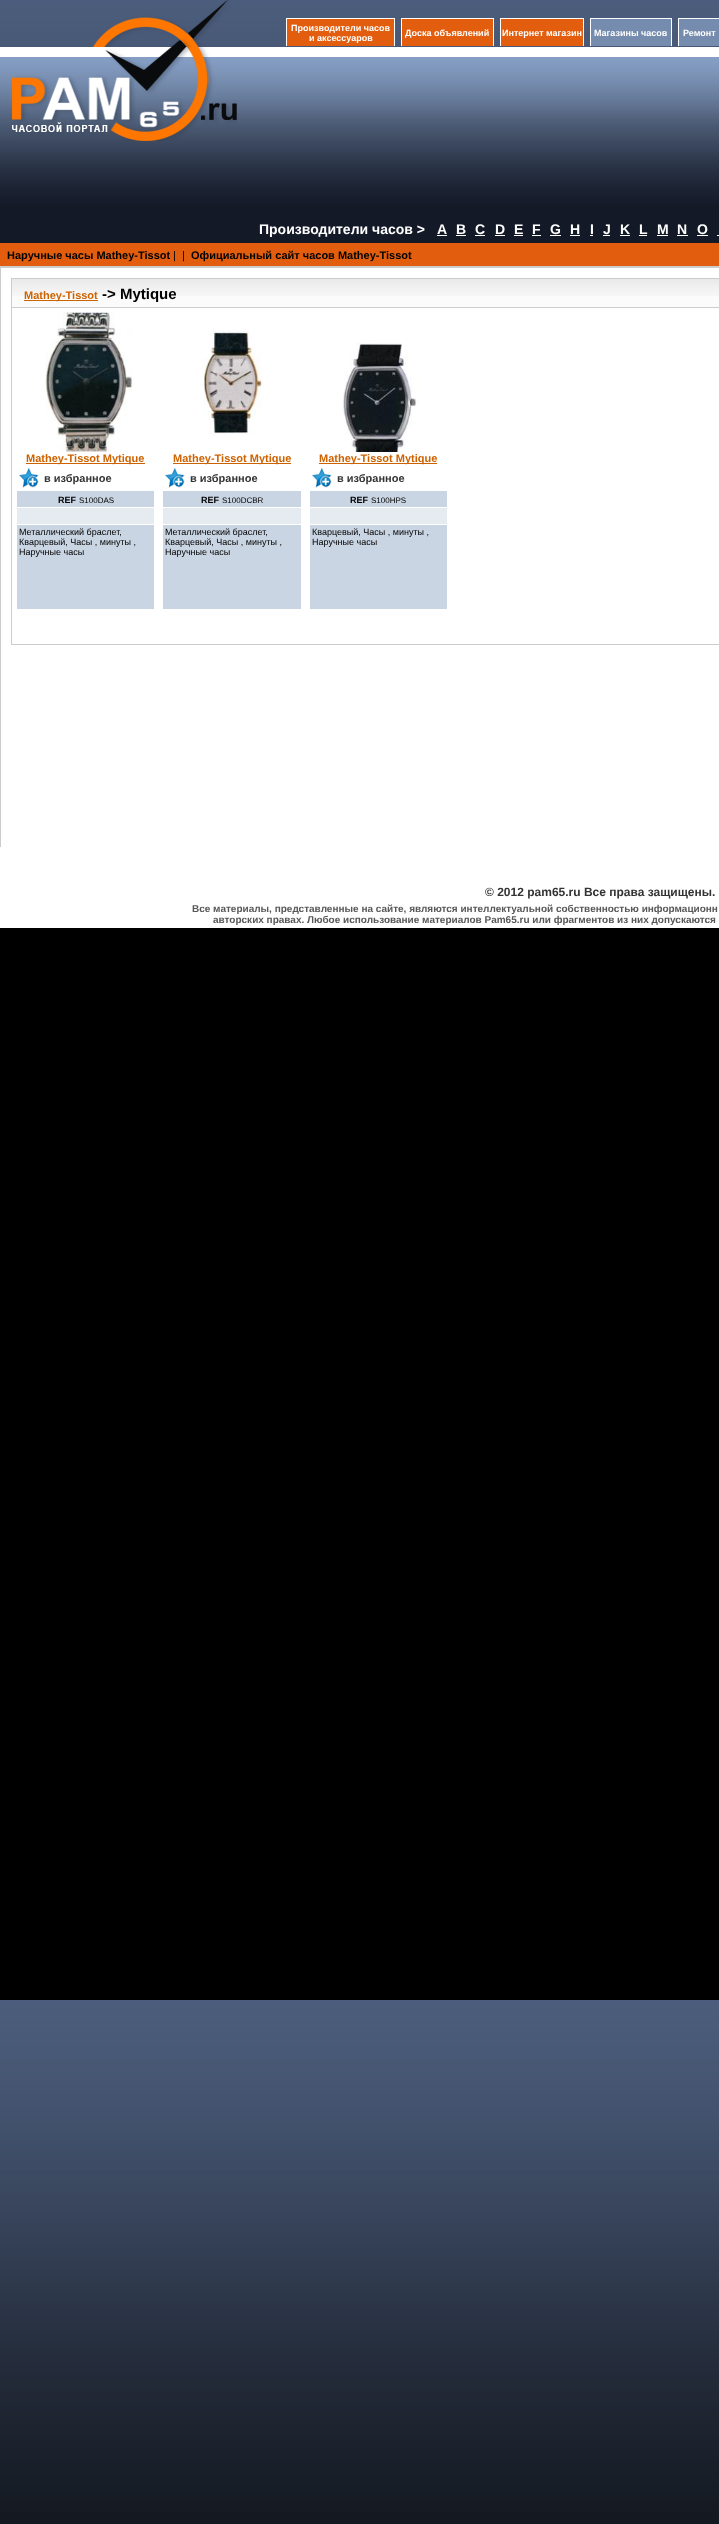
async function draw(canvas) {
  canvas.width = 719
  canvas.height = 2524
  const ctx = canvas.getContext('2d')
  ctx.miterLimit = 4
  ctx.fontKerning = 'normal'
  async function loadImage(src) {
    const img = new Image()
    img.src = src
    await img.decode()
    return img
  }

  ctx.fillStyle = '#fff'
  ctx.fillRect(0, 0, 719, 2524)
  ctx.drawImage(await loadImage('image0.png'), 0, 0, 719, 2524)
  ctx.drawImage(await loadImage('image1.png'), 0, 47, 249, 167)
  ctx.drawImage(await loadImage('image2.png'), 12, 0, 225, 141)
  ctx.drawImage(await loadImage('image3.png'), 249, 47, 470, 167)
  ctx.fillStyle = '#e25e0e'
  ctx.fillRect(287, 19, 107, 27)
  ctx.fillStyle = '#fff'
  ctx.fillRect(286, 18, 109, 1)
  ctx.fillRect(394, 18, 1, 28)
  ctx.fillRect(286, 18, 1, 28)
  ctx.font = 'bold 9px Liberation Sans'
  ctx.fillText('Производители часов', 291, 31)
  ctx.fillText('и аксессуаров', 309, 41)
  ctx.fillStyle = '#e25e0e'
  ctx.fillRect(402, 19, 91, 27)
  ctx.fillStyle = '#fff'
  ctx.fillRect(401, 18, 93, 1)
  ctx.fillRect(493, 18, 1, 28)
  ctx.fillRect(401, 18, 1, 28)
  ctx.fillText('Доска объявлений', 405, 36)
  ctx.fillStyle = '#e25e0e'
  ctx.fillRect(501, 19, 82, 27)
  ctx.fillStyle = '#fff'
  ctx.fillRect(500, 18, 84, 1)
  ctx.fillRect(583, 18, 1, 28)
  ctx.fillRect(500, 18, 1, 28)
  ctx.fillText('Интернет магазин', 502, 36)
  ctx.fillStyle = '#758cae'
  ctx.fillRect(591, 19, 80, 27)
  ctx.fillStyle = '#fff'
  ctx.fillRect(590, 18, 82, 1)
  ctx.fillRect(671, 18, 1, 28)
  ctx.fillRect(590, 18, 1, 28)
  ctx.fillText('Магазины часов', 594, 36)
  ctx.fillStyle = '#758cae'
  ctx.fillRect(679, 19, 40, 27)
  ctx.fillStyle = '#fff'
  ctx.fillRect(678, 18, 41, 1)
  ctx.fillRect(678, 18, 1, 28)
  ctx.fillText('Ремонт', 683, 36)
  ctx.fillStyle = '#131927'
  ctx.fillRect(0, 214, 719, 29)
  ctx.font = 'bold 14px Liberation Sans'
  ctx.fillStyle = '#fff'
  ctx.fillText('Производители часов >', 259, 234)
  ctx.fillText('A', 437, 234)
  ctx.fillRect(437, 235, 10, 1)
  ctx.fillText('B', 456, 234)
  ctx.fillRect(456, 235, 10, 1)
  ctx.fillText('C', 475, 234)
  ctx.fillRect(475, 235, 10, 1)
  ctx.fillText('D', 495, 234)
  ctx.fillRect(495, 235, 10, 1)
  ctx.fillText('E', 514, 234)
  ctx.fillRect(514, 235, 9, 1)
  ctx.fillText('F', 532, 234)
  ctx.fillRect(532, 235, 9, 1)
  ctx.fillText('G', 550, 234)
  ctx.fillRect(550, 235, 11, 1)
  ctx.fillText('H', 570, 234)
  ctx.fillRect(570, 235, 10, 1)
  ctx.fillText('I', 590, 234)
  ctx.fillRect(590, 235, 3, 1)
  ctx.fillText('J', 603, 234)
  ctx.fillRect(603, 235, 7, 1)
  ctx.fillText('K', 620, 234)
  ctx.fillRect(620, 235, 10, 1)
  ctx.fillText('L', 639, 234)
  ctx.fillRect(639, 235, 8, 1)
  ctx.fillText('M', 657, 234)
  ctx.fillRect(657, 235, 11, 1)
  ctx.fillText('N', 677, 234)
  ctx.fillRect(677, 235, 11, 1)
  ctx.fillText('O', 697, 234)
  ctx.fillRect(697, 235, 11, 1)
  ctx.fillRect(717, 235, 2, 1)
  ctx.fillStyle = '#e25e0e'
  ctx.fillRect(0, 243, 719, 23)
  ctx.fillStyle = '#ccc'
  ctx.fillRect(0, 266, 719, 2)
  ctx.font = 'bold 11px Liberation Sans'
  ctx.fillStyle = '#000'
  ctx.fillText('Наручные часы Mathey-Tissot', 7, 259)
  ctx.font = '11px Liberation Sans'
  ctx.fillText('|', 173, 259)
  ctx.fillText('|', 182, 259)
  ctx.font = 'bold 11px Liberation Sans'
  ctx.fillText('Официальный сайт часов Mathey-Tissot', 191, 259)
  ctx.fillStyle = '#fff'
  ctx.fillRect(1, 268, 718, 579)
  ctx.fillStyle = '#ccc'
  ctx.fillRect(0, 267, 1, 580)
  ctx.strokeStyle = '#ccc'
  ctx.strokeRect(11.5, 278.5, 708, 366)
  ctx.fillStyle = '#fbfbfb'
  ctx.fillRect(12, 296, 707, 11)
  ctx.drawImage(await loadImage('image4.png'), 12, 279, 707, 17)
  ctx.fillStyle = '#ccc'
  ctx.fillRect(12, 307, 707, 1)
  ctx.fillStyle = '#cd6201'
  ctx.fillRect(24, 300, 74, 1)
  ctx.fillText('Mathey-Tissot', 24, 299)
  ctx.font = 'bold 15px Liberation Sans'
  ctx.fillStyle = '#000'
  ctx.fillText('-> Mytique', 102, 299)
  ctx.drawImage(await loadImage('image5.png'), 45, 312, 88, 140)
  ctx.fillStyle = '#cd6201'
  ctx.fillRect(26, 463, 119, 1)
  ctx.font = 'bold 11px Liberation Sans'
  ctx.fillText('Mathey-Tissot Mytique', 26, 462)
  ctx.drawImage(await loadImage('image6.png'), 19, 467, 20, 21)
  ctx.fillStyle = '#333'
  ctx.fillText('в избранное', 44, 482)
  ctx.fillStyle = '#cad5e3'
  ctx.fillRect(17, 491, 137, 16)
  ctx.font = 'bold 9px Liberation Sans'
  ctx.fillStyle = '#000'
  ctx.fillText('REF', 58, 503)
  ctx.font = '8px Liberation Sans'
  ctx.fillText('S100DAS', 79, 503)
  ctx.fillStyle = '#e6ebf2'
  ctx.fillRect(17, 508, 137, 16)
  ctx.fillStyle = '#cad5e3'
  ctx.fillRect(17, 525, 137, 84)
  ctx.font = '9px Liberation Sans'
  ctx.fillStyle = '#000'
  ctx.fillText('Металлический браслет,', 19, 535)
  ctx.fillText('Кварцевый, Часы , минуты ,', 19, 545)
  ctx.fillText('Наручные часы', 19, 555)
  ctx.drawImage(await loadImage('image7.png'), 203, 330, 61, 104)
  ctx.fillStyle = '#cd6201'
  ctx.fillRect(173, 463, 118, 1)
  ctx.font = 'bold 11px Liberation Sans'
  ctx.fillText('Mathey-Tissot Mytique', 173, 462)
  ctx.drawImage(await loadImage('image6.png'), 165, 467, 20, 21)
  ctx.fillStyle = '#333'
  ctx.fillText('в избранное', 190, 482)
  ctx.fillStyle = '#cad5e3'
  ctx.fillRect(163, 491, 138, 16)
  ctx.font = 'bold 9px Liberation Sans'
  ctx.fillStyle = '#000'
  ctx.fillText('REF', 201, 503)
  ctx.font = '8px Liberation Sans'
  ctx.fillText('S100DCBR', 222, 503)
  ctx.fillStyle = '#e6ebf2'
  ctx.fillRect(163, 508, 138, 16)
  ctx.fillStyle = '#cad5e3'
  ctx.fillRect(163, 525, 138, 84)
  ctx.font = '9px Liberation Sans'
  ctx.fillStyle = '#000'
  ctx.fillText('Металлический браслет,', 165, 535)
  ctx.fillText('Кварцевый, Часы , минуты ,', 165, 545)
  ctx.fillText('Наручные часы', 165, 555)
  ctx.drawImage(await loadImage('image8.png'), 342, 343, 77, 109)
  ctx.fillStyle = '#cd6201'
  ctx.fillRect(319, 463, 118, 1)
  ctx.font = 'bold 11px Liberation Sans'
  ctx.fillText('Mathey-Tissot Mytique', 319, 462)
  ctx.drawImage(await loadImage('image6.png'), 312, 467, 20, 21)
  ctx.fillStyle = '#333'
  ctx.fillText('в избранное', 337, 482)
  ctx.fillStyle = '#cad5e3'
  ctx.fillRect(310, 491, 137, 16)
  ctx.font = 'bold 9px Liberation Sans'
  ctx.fillStyle = '#000'
  ctx.fillText('REF', 350, 503)
  ctx.font = '8px Liberation Sans'
  ctx.fillText('S100HPS', 371, 503)
  ctx.fillStyle = '#e6ebf2'
  ctx.fillRect(310, 508, 137, 16)
  ctx.fillStyle = '#cad5e3'
  ctx.fillRect(310, 525, 137, 84)
  ctx.font = '9px Liberation Sans'
  ctx.fillStyle = '#000'
  ctx.fillText('Кварцевый, Часы , минуты ,', 312, 535)
  ctx.fillText('Наручные часы', 312, 545)
  ctx.fillStyle = '#fff'
  ctx.fillRect(0, 847, 719, 81)
  ctx.font = 'bold 12px Liberation Sans'
  ctx.fillStyle = '#333'
  ctx.fillText('© 2012 pam65.ru Все права защищены.', 485, 896)
  ctx.font = 'bold 10px Liberation Sans'
  ctx.fillStyle = '#585858'
  ctx.fillText('Все материалы, представленные на сайте, являются интеллектуальной собственностью информационн', 192, 912)
  ctx.fillText('авторских правах. Любое использование материалов Pam65.ru или фрагментов из них допускаются', 213, 923)
}

draw(document.querySelector('canvas'))
